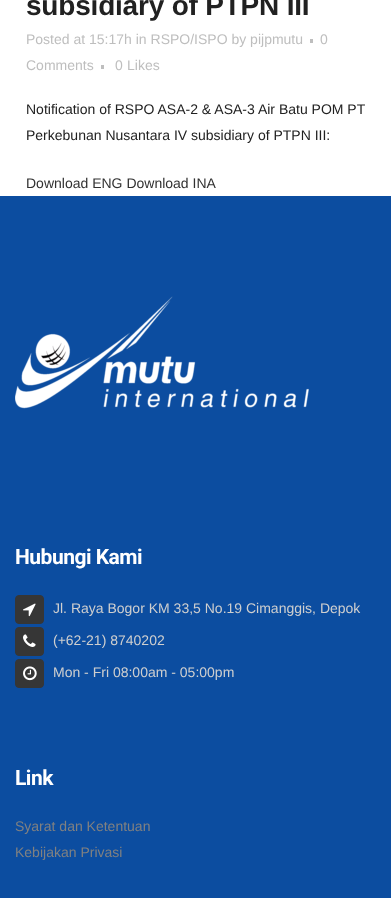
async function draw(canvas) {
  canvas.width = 391
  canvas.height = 898
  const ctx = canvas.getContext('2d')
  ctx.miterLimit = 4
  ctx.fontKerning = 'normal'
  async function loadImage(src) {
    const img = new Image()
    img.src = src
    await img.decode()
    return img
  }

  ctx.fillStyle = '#fff'
  ctx.fillRect(0, 0, 391, 898)
  ctx.letterSpacing = '-0.2px'
  ctx.font = 'bold 28px Liberation Sans'
  ctx.fillStyle = '#212121'
  ctx.fillText('subsidiary of PTPN III', 26, 15)
  ctx.letterSpacing = '0px'
  ctx.font = '14px Liberation Sans'
  ctx.fillStyle = '#bebebe'
  ctx.fillText('Posted at 15:17h in RSPO/ISPO by pijpmutu', 26, 44)
  ctx.fillRect(310, 39, 3, 4)
  ctx.fillText('0', 320, 44)
  ctx.fillText('Comments', 26, 70)
  ctx.fillRect(101, 65, 3, 4)
  ctx.fillText('0', 115, 70)
  ctx.fillText('Likes', 127, 70)
  ctx.fillStyle = '#212121'
  ctx.fillText('Notification of RSPO ASA-2 & ASA-3 Air Batu POM PT', 26, 114)
  ctx.fillText('Perkebunan Nusantara IV subsidiary of PTPN III:', 26, 140)
  ctx.fillStyle = '#303030'
  ctx.fillText('Download ENG Download INA', 26, 188)
  ctx.fillStyle = '#0c4da0'
  ctx.fillRect(0, 196, 391, 702)
  ctx.drawImage(await loadImage('image0.png'), 15, 296, 294, 113)
  ctx.letterSpacing = '-0.5px'
  ctx.font = 'bold 21px Roboto'
  ctx.fillStyle = '#fff'
  ctx.fillText('Hubungi Kami', 15, 564)
  ctx.fillStyle = '#363636'
  ctx.beginPath()
  ctx.roundRect(15.5, 595.5, 28, 28, 3.5)
  ctx.fill()
  ctx.strokeStyle = '#363636'
  ctx.stroke()
  ctx.drawImage(await loadImage('image1.png'), 23, 603, 13, 14)
  ctx.letterSpacing = '0px'
  ctx.font = '14px Liberation Sans'
  ctx.fillStyle = '#cfcfcf'
  ctx.fillText('Jl. Raya Bogor KM 33,5 No.19 Cimanggis, Depok', 53, 613)
  ctx.fillStyle = '#363636'
  ctx.beginPath()
  ctx.roundRect(15.5, 627.5, 28, 28, 3.5)
  ctx.fill()
  ctx.stroke()
  ctx.drawImage(await loadImage('image2.png'), 23, 634, 13, 13)
  ctx.fillStyle = '#cfcfcf'
  ctx.fillText('(+62-21) 8740202', 53, 645)
  ctx.fillStyle = '#363636'
  ctx.beginPath()
  ctx.roundRect(15.5, 659.5, 28, 28, 3.5)
  ctx.fill()
  ctx.stroke()
  ctx.drawImage(await loadImage('image3.png'), 23, 666, 14, 15)
  ctx.fillStyle = '#cfcfcf'
  ctx.fillText('Mon - Fri 08:00am - 05:00pm', 53, 677)
  ctx.letterSpacing = '-0.5px'
  ctx.font = 'bold 21px Roboto'
  ctx.fillStyle = '#fff'
  ctx.fillText('Link', 15, 785)
  ctx.letterSpacing = '0px'
  ctx.font = '14px Liberation Sans'
  ctx.fillStyle = '#818181'
  ctx.fillText('Syarat dan Ketentuan', 15, 831)
  ctx.fillText('Kebijakan Privasi', 15, 857)
}

draw(document.querySelector('canvas'))
